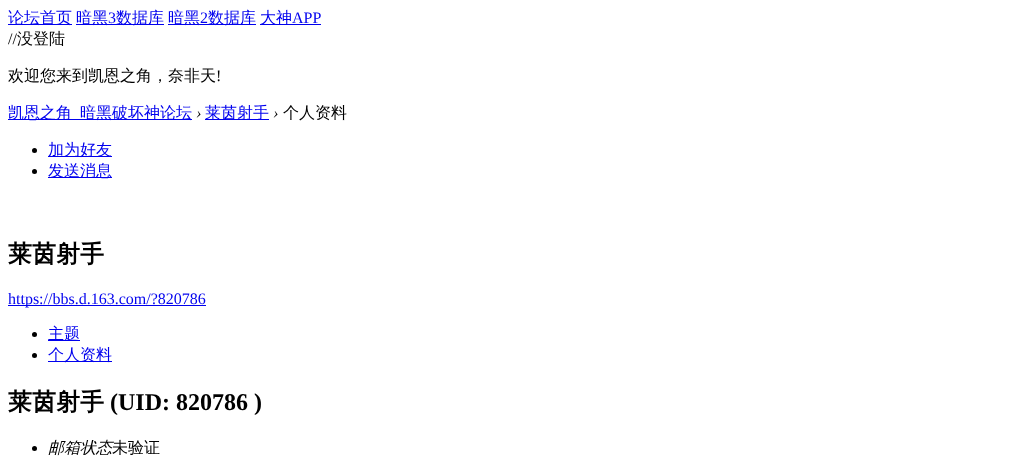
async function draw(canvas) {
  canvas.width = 1031
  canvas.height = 459
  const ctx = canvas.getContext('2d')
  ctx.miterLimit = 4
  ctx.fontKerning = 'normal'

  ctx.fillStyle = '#fff'
  ctx.fillRect(0, 0, 1031, 459)
  ctx.fillStyle = '#00e'
  ctx.fillRect(8, 24, 64, 1)
  ctx.font = '500 16px WenQuanYi Zen Hei'
  ctx.fillText('论坛首页', 8, 23)
  ctx.fillRect(76, 24, 88, 1)
  ctx.fillText('暗黑', 76, 23)
  ctx.font = '16px Liberation Serif'
  ctx.fillText('3', 108, 23)
  ctx.font = '500 16px WenQuanYi Zen Hei'
  ctx.fillText('数据库', 116, 23)
  ctx.fillRect(168, 24, 88, 1)
  ctx.fillText('暗黑', 168, 23)
  ctx.font = '16px Liberation Serif'
  ctx.fillText('2', 200, 23)
  ctx.font = '500 16px WenQuanYi Zen Hei'
  ctx.fillText('数据库', 208, 23)
  ctx.fillRect(260, 24, 61, 1)
  ctx.fillText('大神', 260, 23)
  ctx.font = '16px Liberation Serif'
  ctx.fillText('APP', 292, 23)
  ctx.fillStyle = '#000'
  ctx.fillText('//', 8, 44)
  ctx.font = '500 16px WenQuanYi Zen Hei'
  ctx.fillText('没登陆', 17, 44)
  ctx.fillText('欢迎您来到凯恩之角，奈非天', 8, 81)
  ctx.font = '16px Liberation Serif'
  ctx.fillText('!', 216, 81)
  ctx.fillStyle = '#00e'
  ctx.fillRect(8, 119, 184, 1)
  ctx.font = '500 16px WenQuanYi Zen Hei'
  ctx.fillText('凯恩之角', 8, 118)
  ctx.fillText('暗黑破坏神论坛', 80, 118)
  ctx.font = 'italic 16px Liberation Serif'
  ctx.fillStyle = '#000'
  ctx.fillText('›', 196, 118)
  ctx.fillStyle = '#00e'
  ctx.fillRect(205, 119, 64, 1)
  ctx.font = '500 16px WenQuanYi Zen Hei'
  ctx.fillText('莱茵射手', 205, 118)
  ctx.font = 'italic 16px Liberation Serif'
  ctx.fillStyle = '#000'
  ctx.fillText('›', 273, 118)
  ctx.font = '500 16px WenQuanYi Zen Hei'
  ctx.fillText('个人资料', 283, 118)
  ctx.beginPath()
  ctx.arc(34.5, 150.5, 2.5, 0, 2 * Math.PI)
  ctx.fill()
  ctx.fillStyle = '#00e'
  ctx.fillRect(48, 156, 64, 1)
  ctx.fillText('加为好友', 48, 155)
  ctx.fillStyle = '#000'
  ctx.beginPath()
  ctx.arc(34.5, 171.5, 2.5, 0, 2 * Math.PI)
  ctx.fill()
  ctx.fillStyle = '#00e'
  ctx.fillRect(48, 177, 64, 1)
  ctx.fillText('发送消息', 48, 176)
  ctx.font = 'bold 24px WenQuanYi Zen Hei'
  ctx.fillStyle = '#000'
  ctx.fillText('莱茵射手', 8, 262)
  ctx.fillStyle = '#00e'
  ctx.fillRect(8, 305, 198, 1)
  ctx.font = '16px Liberation Serif'
  ctx.fillText('https://bbs.d.163.com/?820786', 8, 304)
  ctx.fillStyle = '#000'
  ctx.beginPath()
  ctx.arc(34.5, 334.5, 2.5, 0, 2 * Math.PI)
  ctx.fill()
  ctx.fillStyle = '#00e'
  ctx.fillRect(48, 340, 32, 1)
  ctx.font = '500 16px WenQuanYi Zen Hei'
  ctx.fillText('主题', 48, 339)
  ctx.fillStyle = '#000'
  ctx.beginPath()
  ctx.arc(34.5, 355.5, 2.5, 0, 2 * Math.PI)
  ctx.fill()
  ctx.fillStyle = '#00e'
  ctx.fillRect(48, 361, 64, 1)
  ctx.fillText('个人资料', 48, 360)
  ctx.font = 'bold 24px WenQuanYi Zen Hei'
  ctx.fillStyle = '#000'
  ctx.fillText('莱茵射手', 8, 410)
  ctx.font = 'bold 24px Liberation Serif'
  ctx.fillText('(UID: 820786 )', 110, 410)
  ctx.beginPath()
  ctx.arc(34.5, 448.5, 2.5, 0, 2 * Math.PI)
  ctx.fill()
  ctx.font = 'italic 500 16px WenQuanYi Zen Hei'
  ctx.fillText('邮箱状态', 48, 453)
  ctx.font = '500 16px WenQuanYi Zen Hei'
  ctx.fillText('未验证', 112, 453)
}

draw(document.querySelector('canvas'))
